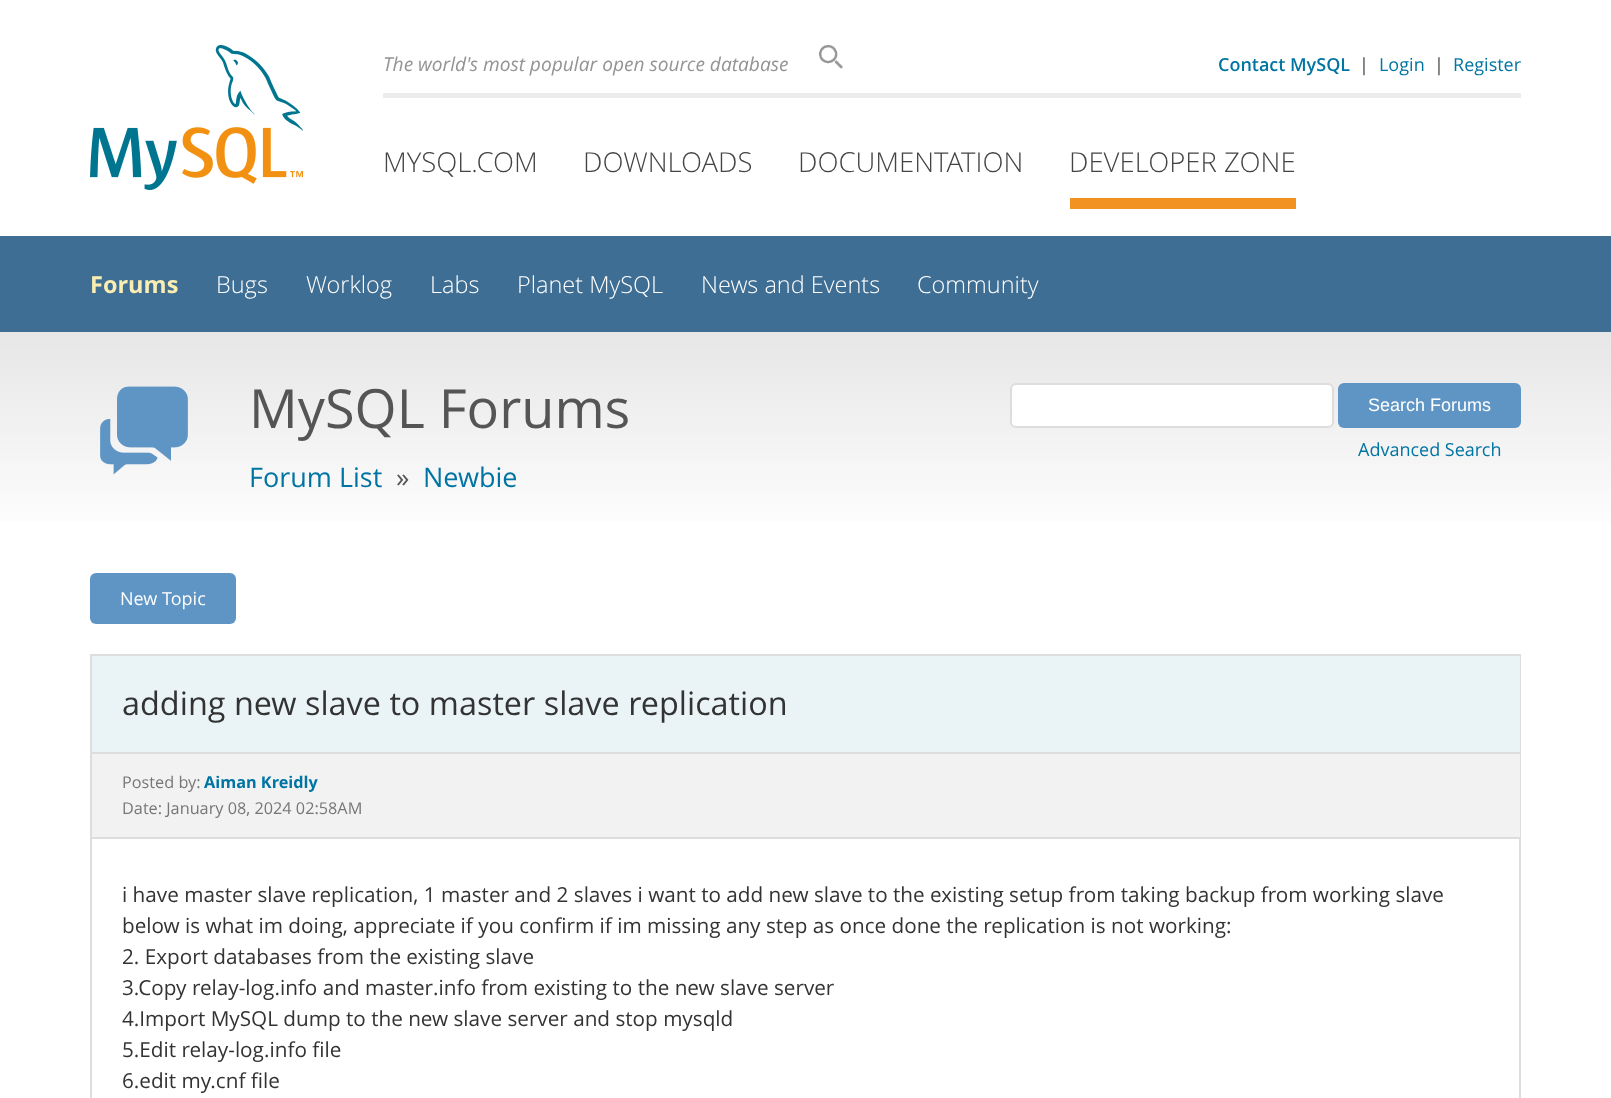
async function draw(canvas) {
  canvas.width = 1611
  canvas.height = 1098
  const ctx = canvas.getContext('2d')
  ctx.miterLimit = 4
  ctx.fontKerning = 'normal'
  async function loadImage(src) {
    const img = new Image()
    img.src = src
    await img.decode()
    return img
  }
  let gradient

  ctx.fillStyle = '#fff'
  ctx.fillRect(0, 0, 1611, 1098)
  ctx.drawImage(await loadImage('image0.png'), 90, 45, 213, 145)
  ctx.fillStyle = '#ebecee'
  ctx.fillRect(383, 93, 1138, 5)
  ctx.font = 'italic 19.2px Open Sans'
  ctx.fillStyle = '#949494'
  ctx.fillText('The world\'s most popular open source database', 383, 71)
  ctx.drawImage(await loadImage('image1.png'), 819, 45, 24, 24)
  ctx.font = '600 18px Open Sans'
  ctx.fillStyle = '#0074a3'
  ctx.fillText('Contact MySQL', 1218, 71)
  ctx.font = '18px Open Sans'
  ctx.fillStyle = '#444'
  ctx.fillText('|', 1359, 71)
  ctx.fillStyle = '#0074a3'
  ctx.fillText('Login', 1379, 71)
  ctx.fillStyle = '#444'
  ctx.fillText('|', 1434, 71)
  ctx.fillStyle = '#0074a3'
  ctx.fillText('Register', 1453, 71)
  ctx.font = '300 27.5px Open Sans'
  ctx.fillStyle = '#444'
  ctx.fillText('MYSQL.COM', 383, 172)
  ctx.fillText('DOWNLOADS', 583, 172)
  ctx.fillText('DOCUMENTATION', 798, 172)
  ctx.fillStyle = '#f29221'
  ctx.fillRect(1070, 198, 226, 11)
  ctx.fillStyle = '#444'
  ctx.fillText('DEVELOPER ZONE', 1069, 172)
  ctx.fillStyle = '#3e6e93'
  ctx.fillRect(0, 236, 1611, 96)
  ctx.font = 'bold 23.5px Open Sans'
  ctx.fillStyle = '#faedb2'
  ctx.fillText('Forums', 90, 293)
  ctx.font = '300 23.5px Open Sans'
  ctx.fillStyle = '#fff'
  ctx.fillText('Bugs', 216, 293)
  ctx.fillText('Worklog', 306, 293)
  ctx.fillText('Labs', 430, 293)
  ctx.fillText('Planet MySQL', 517, 293)
  ctx.fillText('News and Events', 701, 293)
  ctx.fillText('Community', 917, 293)
  gradient = ctx.createLinearGradient(806, 331, 806, 543)
  gradient.addColorStop(0, '#e6e6e6')
  gradient.addColorStop(1, '#fff')
  ctx.fillStyle = gradient
  ctx.fillRect(0, 332, 1611, 190)
  ctx.drawImage(await loadImage('image2.png'), 100, 386, 88, 89)
  ctx.font = '54px Open Sans'
  ctx.fillStyle = '#555'
  ctx.fillText('MySQL Forums', 249, 428)
  ctx.font = '27px Open Sans'
  ctx.fillStyle = '#0074a3'
  ctx.fillText('Forum List', 249, 487)
  ctx.fillStyle = '#555'
  ctx.fillText('»', 396, 487)
  ctx.fillStyle = '#0074a3'
  ctx.fillText('Newbie', 423, 487)
  ctx.fillStyle = '#fff'
  ctx.beginPath()
  ctx.roundRect(1011, 384, 322, 43, 5)
  ctx.fill()
  ctx.strokeStyle = '#ddd'
  ctx.lineWidth = 2
  ctx.stroke()
  ctx.fillStyle = '#5f95c4'
  ctx.beginPath()
  ctx.roundRect(1338, 383, 183, 45, 6)
  ctx.fill()
  ctx.font = '18px Liberation Sans'
  ctx.fillStyle = '#fff'
  ctx.fillText('Search Forums', 1368, 411)
  ctx.font = '18px Open Sans'
  ctx.fillStyle = '#0074a3'
  ctx.fillText('Advanced Search', 1358, 456)
  ctx.fillStyle = '#5f95c4'
  ctx.beginPath()
  ctx.roundRect(90, 573, 146, 51, 6)
  ctx.fill()
  ctx.fillStyle = '#fff'
  ctx.fillText('New Topic', 120, 605)
  ctx.strokeRect(91, 655, 1429, 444)
  ctx.fillStyle = '#eaf4f7'
  ctx.fillRect(92, 656, 1428, 96)
  ctx.font = '32.4px Open Sans'
  ctx.fillStyle = '#333'
  ctx.fillText('adding new slave to master slave replication', 122, 715)
  ctx.fillStyle = '#f2f2f2'
  ctx.fillRect(92, 754, 1428, 83)
  ctx.fillStyle = '#ddd'
  ctx.fillRect(92, 752, 1428, 2)
  ctx.fillRect(92, 837, 1428, 2)
  ctx.font = '16.25px Open Sans'
  ctx.fillStyle = '#777'
  ctx.fillText('Posted by:', 122, 788)
  ctx.font = 'bold 16.25px Open Sans'
  ctx.fillStyle = '#0074a3'
  ctx.fillText('Aiman Kreidly', 204, 788)
  ctx.font = '16.25px Open Sans'
  ctx.fillStyle = '#777'
  ctx.fillText('Date: January 08, 2024 02:58AM', 122, 814)
  ctx.font = '20.7px Open Sans'
  ctx.fillStyle = '#333'
  ctx.fillText('i have master slave replication, 1 master and 2 slaves i want to add new slave to the existing setup from taking backup from working slave', 122, 902)
  ctx.fillText('below is what im doing, appreciate if you confirm if im missing any step as once done the replication is not working:', 122, 933)
  ctx.fillText('2. Export databases from the existing slave', 122, 964)
  ctx.fillText('3.Copy relay-log.info and master.info from existing to the new slave server', 122, 995)
  ctx.fillText('4.Import MySQL dump to the new slave server and stop mysqld', 122, 1026)
  ctx.fillText('5.Edit relay-log.info file', 122, 1057)
  ctx.fillText('6.edit my.cnf file', 122, 1088)
}

draw(document.querySelector('canvas'))
